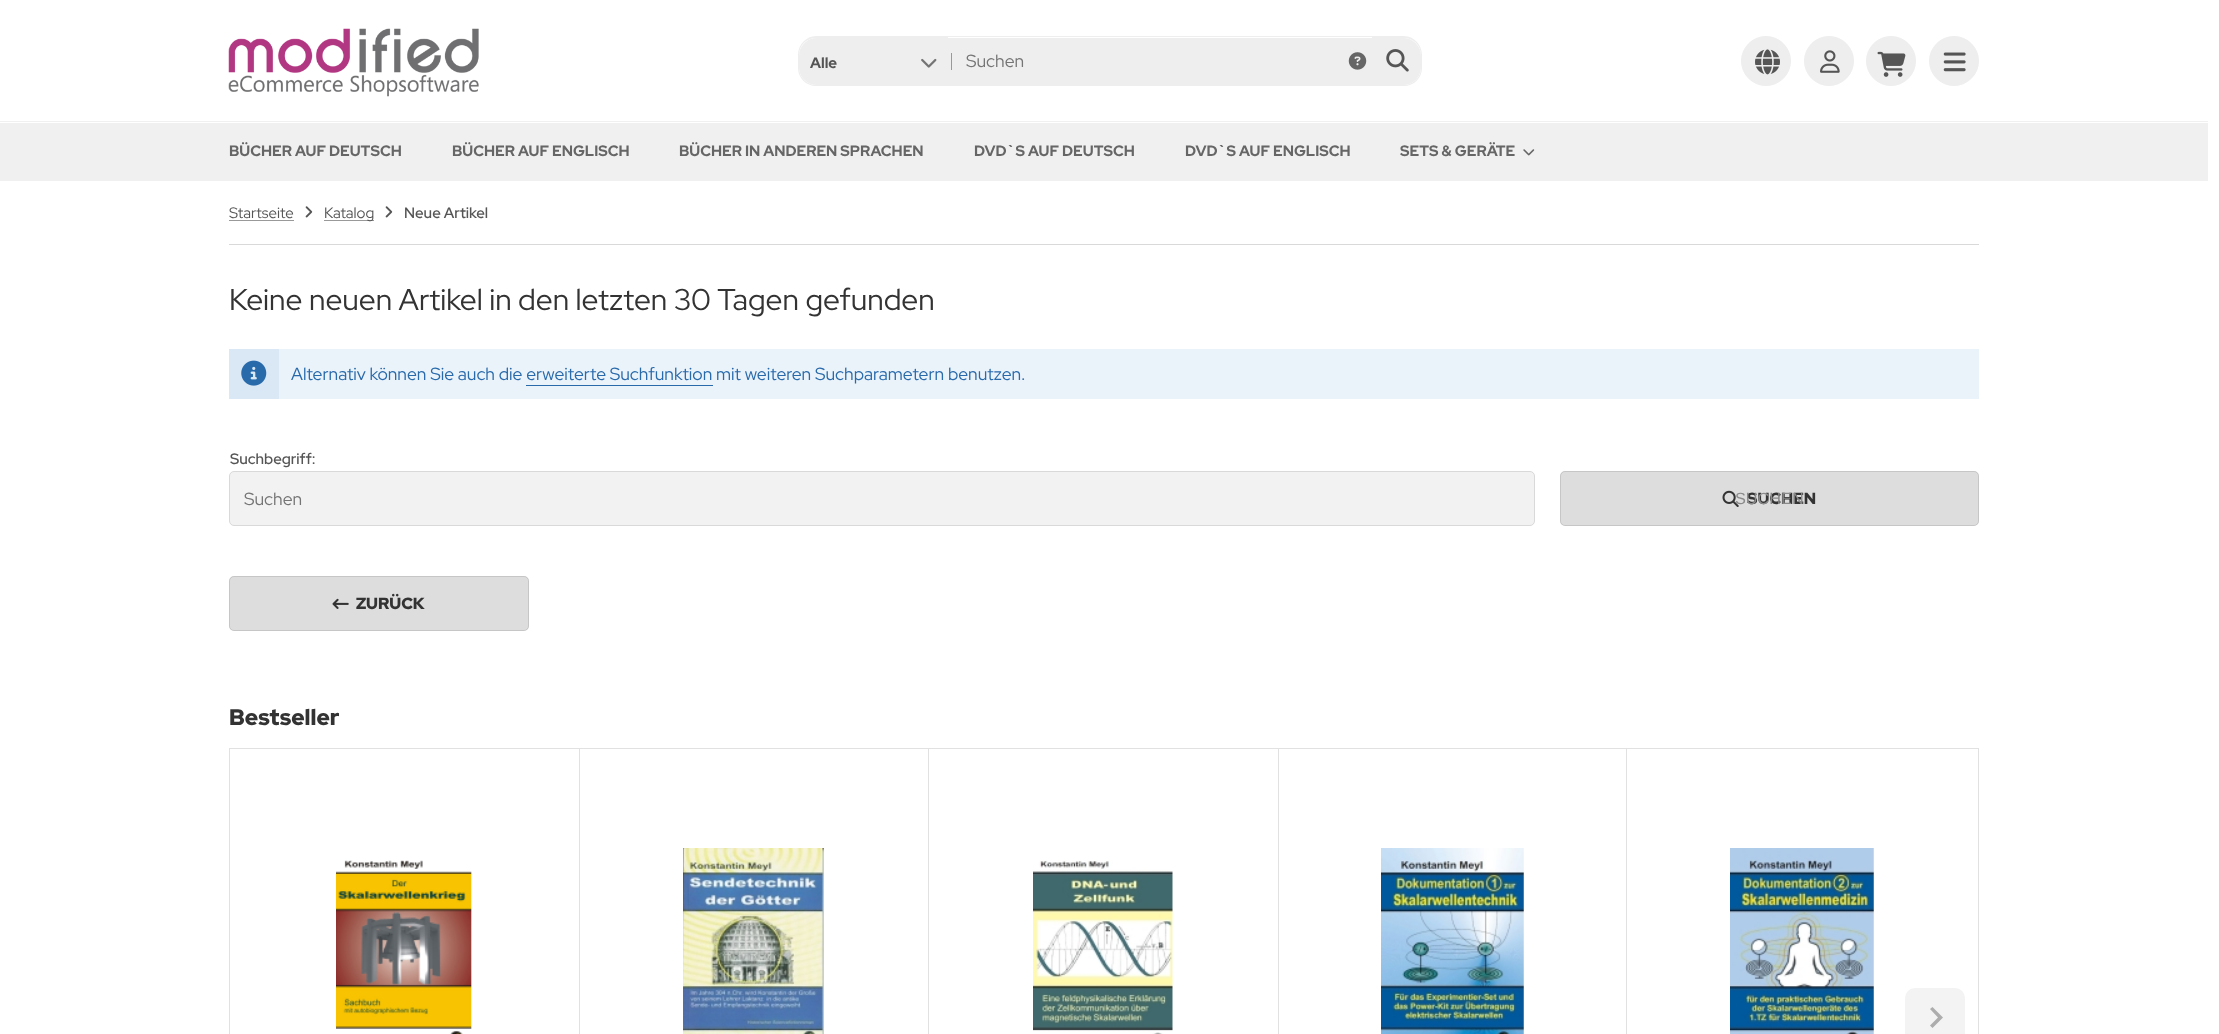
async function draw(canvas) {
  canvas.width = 2219
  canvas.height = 1034
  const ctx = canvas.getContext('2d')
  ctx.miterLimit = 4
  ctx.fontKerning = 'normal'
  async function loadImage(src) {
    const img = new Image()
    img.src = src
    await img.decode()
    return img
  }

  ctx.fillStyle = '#fff'
  ctx.fillRect(0, 0, 2219, 1034)
  ctx.drawImage(await loadImage('image0.png'), 228, 28, 251, 69)
  ctx.fillStyle = '#eee'
  ctx.beginPath()
  ctx.roundRect(799, 38, 149, 47, [18, 0, 0, 18])
  ctx.fill()
  ctx.beginPath()
  ctx.moveTo(816, 36)
  ctx.lineTo(948, 36)
  ctx.lineTo(948, 86)
  ctx.lineTo(816, 86)
  ctx.bezierCurveTo(806, 86, 798, 78, 798, 68)
  ctx.lineTo(798, 55)
  ctx.bezierCurveTo(798, 45, 806, 36, 816, 36)
  ctx.closePath()
  ctx.moveTo(816, 38)
  ctx.lineTo(948, 38)
  ctx.lineTo(948, 85)
  ctx.lineTo(816, 85)
  ctx.bezierCurveTo(807, 85, 799, 77, 799, 68)
  ctx.lineTo(799, 55)
  ctx.bezierCurveTo(799, 45, 807, 38, 816, 38)
  ctx.closePath()
  ctx.fill('evenodd')
  ctx.font = 'bold 15px Red Hat Display'
  ctx.fillStyle = '#555'
  ctx.fillText('Alle', 810, 68)
  ctx.drawImage(await loadImage('image1.png'), 921, 58, 16, 10)
  ctx.fillStyle = '#eee'
  ctx.fillRect(948, 38, 425, 48)
  ctx.fillStyle = '#999'
  ctx.fillRect(951, 53, 1, 17)
  ctx.fillStyle = '#eee'
  ctx.fillRect(948, 36, 425, 1)
  ctx.font = '17.5px Red Hat Display'
  ctx.fillStyle = '#757575'
  ctx.fillText('Suchen', 966, 67)
  ctx.drawImage(await loadImage('image2.png'), 1348, 52, 19, 18)
  ctx.fillStyle = '#eee'
  ctx.beginPath()
  ctx.roundRect(1373, 38, 48, 47, [0, 18, 18, 0])
  ctx.fill()
  ctx.beginPath()
  ctx.moveTo(1372, 36)
  ctx.lineTo(1404, 36)
  ctx.bezierCurveTo(1414, 36, 1422, 45, 1422, 55)
  ctx.lineTo(1422, 68)
  ctx.bezierCurveTo(1422, 78, 1414, 86, 1404, 86)
  ctx.lineTo(1372, 86)
  ctx.closePath()
  ctx.moveTo(1372, 38)
  ctx.lineTo(1404, 38)
  ctx.bezierCurveTo(1413, 38, 1421, 45, 1421, 55)
  ctx.lineTo(1421, 68)
  ctx.bezierCurveTo(1421, 77, 1413, 85, 1404, 85)
  ctx.lineTo(1372, 85)
  ctx.closePath()
  ctx.fill('evenodd')
  ctx.drawImage(await loadImage('image3.png'), 1386, 49, 23, 23)
  ctx.beginPath()
  ctx.arc(1766, 61, 24.5, 0, 2 * Math.PI)
  ctx.fill()
  ctx.strokeStyle = '#eee'
  ctx.stroke()
  ctx.drawImage(await loadImage('image4.png'), 1755, 49, 25, 26)
  ctx.beginPath()
  ctx.arc(1829, 61, 24.5, 0, 2 * Math.PI)
  ctx.fill()
  ctx.stroke()
  ctx.drawImage(await loadImage('image5.png'), 1820, 50, 20, 23)
  ctx.beginPath()
  ctx.arc(1891, 61, 24.5, 0, 2 * Math.PI)
  ctx.fill()
  ctx.stroke()
  ctx.drawImage(await loadImage('image6.png'), 1877, 51, 29, 26)
  ctx.beginPath()
  ctx.arc(1954, 61, 24.5, 0, 2 * Math.PI)
  ctx.fill()
  ctx.stroke()
  ctx.drawImage(await loadImage('image7.png'), 1943, 52, 23, 20)
  ctx.fillStyle = '#f0f0f0'
  ctx.fillRect(0, 123, 2208, 58)
  ctx.fillRect(0, 121, 2208, 1)
  ctx.font = 'bold 15px Red Hat Display'
  ctx.fillStyle = '#666'
  ctx.fillText('BÜCHER AUF DEUTSCH', 229, 156)
  ctx.fillText('BÜCHER AUF ENGLISCH', 452, 156)
  ctx.fillText('BÜCHER IN ANDEREN SPRACHEN', 679, 156)
  ctx.fillText('DVD`S AUF DEUTSCH', 974, 156)
  ctx.fillText('DVD`S AUF ENGLISCH', 1185, 156)
  ctx.fillText('SETS & GERÄTE', 1400, 156)
  ctx.drawImage(await loadImage('image8.png'), 1523, 149, 12, 7)
  ctx.fillStyle = '#d9d9d9'
  ctx.fillRect(229, 244, 1750, 1)
  ctx.fillStyle = '#999'
  ctx.fillRect(229, 220, 65, 1)
  ctx.font = '15px Red Hat Display'
  ctx.fillStyle = '#555'
  ctx.fillText('Startseite', 229, 218)
  ctx.drawImage(await loadImage('image9.png'), 305, 206, 8, 12)
  ctx.fillStyle = '#999'
  ctx.fillRect(324, 220, 50, 1)
  ctx.fillStyle = '#555'
  ctx.fillText('Katalog', 324, 218)
  ctx.drawImage(await loadImage('image9.png'), 385, 206, 8, 12)
  ctx.font = '600 15px Red Hat Display'
  ctx.fillText('Neue Artikel', 404, 218)
  ctx.font = '30px Red Hat Display'
  ctx.fillStyle = '#333'
  ctx.fillText('Keine neuen Artikel in den letzten 30 Tagen gefunden', 229, 310)
  ctx.fillStyle = '#eaf2fa'
  ctx.fillRect(279, 349, 1700, 50)
  ctx.fillStyle = '#dae8f5'
  ctx.fillRect(229, 349, 50, 50)
  ctx.drawImage(await loadImage('image10.png'), 241, 360, 26, 26)
  ctx.font = '17.5px Red Hat Display'
  ctx.fillStyle = '#296aab'
  ctx.fillText('Alternativ können Sie auch die erweiterte Suchfunktion mit weiteren Suchparametern benutzen.', 291, 380)
  ctx.fillRect(526, 385, 187, 1)
  ctx.font = '600 15px Red Hat Display'
  ctx.fillStyle = '#555'
  ctx.fillText('Suchbegriff:', 230, 464)
  ctx.fillStyle = '#f2f2f2'
  ctx.beginPath()
  ctx.roundRect(229.5, 471.5, 1305, 54, 4.5)
  ctx.fill()
  ctx.strokeStyle = '#d9d9d9'
  ctx.stroke()
  ctx.font = '17.5px Red Hat Display'
  ctx.fillStyle = '#757575'
  ctx.fillText('Suchen', 244, 505)
  ctx.fillStyle = '#ddd'
  ctx.beginPath()
  ctx.roundRect(1560, 471, 419, 55, 5)
  ctx.fill()
  ctx.beginPath()
  ctx.roundRect(1560.5, 471.5, 418, 54, 4.5)
  ctx.strokeStyle = '#0000001a'
  ctx.stroke()
  ctx.drawImage(await loadImage('image11.png'), 1722, 490, 17, 17)
  ctx.font = '900 16.25px Red Hat Display'
  ctx.fillStyle = '#333'
  ctx.fillText('SUCHEN', 1747, 504)
  ctx.font = '16.25px Liberation Sans'
  ctx.fillStyle = '#8a8a8a'
  ctx.fillText('SUCHEN', 1735, 504)
  ctx.fillStyle = '#ddd'
  ctx.beginPath()
  ctx.roundRect(229, 576, 300, 55, 5)
  ctx.fill()
  ctx.beginPath()
  ctx.roundRect(229.5, 576.5, 299, 54, 4.5)
  ctx.stroke()
  ctx.drawImage(await loadImage('image12.png'), 332, 598, 17, 11)
  ctx.font = '900 16.25px Red Hat Display'
  ctx.fillStyle = '#333'
  ctx.fillText('ZURÜCK', 356, 609)
  ctx.font = '900 22.5px Red Hat Display'
  ctx.fillText('Bestseller', 229, 725)
  ctx.strokeStyle = '#e1e1e1'
  ctx.strokeRect(229.5, 748.5, 1749, 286)
  ctx.fillStyle = '#e1e1e1'
  ctx.fillRect(579, 749, 1, 285)
  ctx.drawImage(await loadImage('image13.png'), 336, 860, 136, 174)
  ctx.fillRect(928, 749, 1, 285)
  ctx.drawImage(await loadImage('image14.png'), 683, 848, 141, 186)
  ctx.fillRect(1278, 749, 1, 285)
  ctx.drawImage(await loadImage('image15.png'), 1033, 860, 140, 174)
  ctx.fillRect(1626, 749, 1, 285)
  ctx.drawImage(await loadImage('image16.png'), 1381, 848, 143, 186)
  ctx.drawImage(await loadImage('image17.png'), 1730, 848, 144, 186)
  ctx.fillStyle = '#f3f3f3'
  ctx.beginPath()
  ctx.roundRect(1905, 988, 60, 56, 10)
  ctx.fill()
  ctx.fillStyle = '#adadad'
  ctx.beginPath()
  ctx.moveTo(1932.5, 1007)
  ctx.lineTo(1930, 1009)
  ctx.lineTo(1938, 1017.5)
  ctx.lineTo(1930, 1025.5)
  ctx.lineTo(1932.5, 1028)
  ctx.lineTo(1943, 1017.5)
  ctx.closePath()
  ctx.fill()
}

draw(document.querySelector('canvas'))
